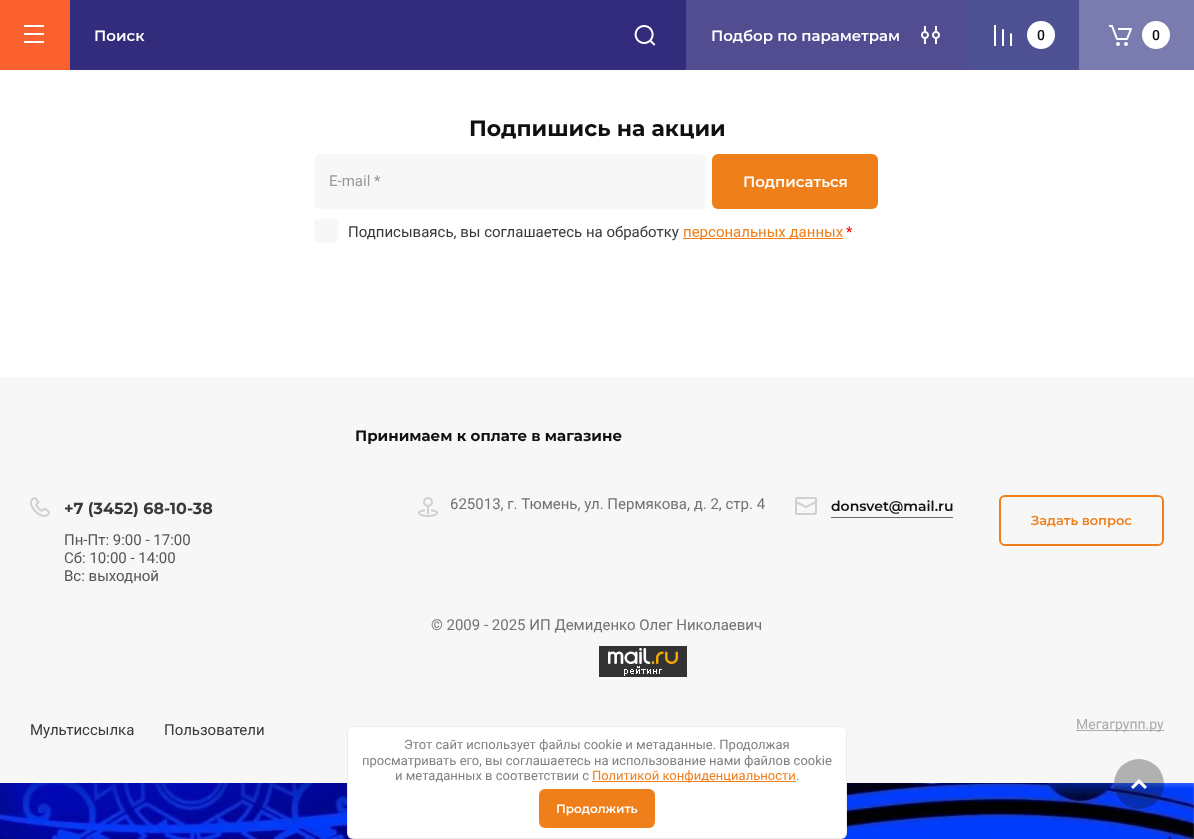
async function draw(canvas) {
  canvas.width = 1194
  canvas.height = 839
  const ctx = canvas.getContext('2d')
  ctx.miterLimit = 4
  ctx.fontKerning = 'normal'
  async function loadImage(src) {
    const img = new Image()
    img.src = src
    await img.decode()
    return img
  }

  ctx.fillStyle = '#fff'
  ctx.fillRect(0, 0, 1194, 839)
  ctx.drawImage(await loadImage('image0.png'), 0, 783, 1194, 56)
  ctx.fillStyle = '#fb602f'
  ctx.fillRect(0, 0, 70, 70)
  ctx.drawImage(await loadImage('image1.png'), 24, 25, 20, 18)
  ctx.fillStyle = '#332c7c'
  ctx.fillRect(70, 0, 616, 70)
  ctx.font = '600 15px Montserrat'
  ctx.fillStyle = '#fff'
  ctx.fillText('Поиск', 94, 41)
  ctx.drawImage(await loadImage('image2.png'), 634, 25, 22, 21)
  ctx.fillStyle = '#524c90'
  ctx.fillRect(686, 0, 278, 70)
  ctx.fillStyle = '#fff'
  ctx.fillText('Подбор по параметрам', 711, 41)
  ctx.drawImage(await loadImage('image3.png'), 921, 26, 19, 18)
  ctx.fillStyle = '#4e5094'
  ctx.fillRect(964, 0, 115, 70)
  ctx.drawImage(await loadImage('image4.png'), 994, 25, 18, 21)
  ctx.fillStyle = '#fff'
  ctx.beginPath()
  ctx.arc(1041, 35, 14, 0, 2 * Math.PI)
  ctx.fill()
  ctx.font = '500 14px Roboto'
  ctx.fillStyle = '#101010'
  ctx.fillText('0', 1037, 40)
  ctx.fillStyle = '#7a7caf'
  ctx.fillRect(1079, 0, 115, 70)
  ctx.drawImage(await loadImage('image5.png'), 1109, 25, 23, 21)
  ctx.fillStyle = '#fff'
  ctx.beginPath()
  ctx.arc(1156, 35, 14, 0, 2 * Math.PI)
  ctx.fill()
  ctx.fillStyle = '#101010'
  ctx.fillText('0', 1152, 40)
  ctx.font = 'bold 22px Montserrat'
  ctx.fillText('Подпишись на акции', 469, 136)
  ctx.fillStyle = '#f7f7f7'
  ctx.beginPath()
  ctx.roundRect(314, 154, 392, 55, 6)
  ctx.fill()
  ctx.font = '15px Roboto'
  ctx.fillStyle = '#989898'
  ctx.fillText('E-mail *', 329, 186)
  ctx.fillStyle = '#ef7f1a'
  ctx.beginPath()
  ctx.roundRect(712, 154, 166, 55, 6)
  ctx.fill()
  ctx.font = '600 15px Montserrat'
  ctx.fillStyle = '#fff'
  ctx.fillText('Подписаться', 743, 187)
  ctx.fillStyle = '#f7f7f7'
  ctx.beginPath()
  ctx.roundRect(314, 219, 24, 24, 4)
  ctx.fill()
  ctx.font = '15px Roboto'
  ctx.fillStyle = '#393939'
  ctx.fillText('Подписываясь, вы соглашаетесь на обработку', 348, 237)
  ctx.fillStyle = '#ef7f1a'
  ctx.fillRect(683, 238, 160, 1)
  ctx.fillText('персональных данных', 683, 237)
  ctx.fillStyle = '#f00'
  ctx.fillText('*', 846, 237)
  ctx.fillStyle = '#f7f7f7'
  ctx.fillRect(0, 377, 1194, 406)
  ctx.font = 'bold 15px Montserrat'
  ctx.fillStyle = '#101010'
  ctx.fillText('Принимаем к оплате в магазине', 355, 441)
  ctx.drawImage(await loadImage('image6.png'), 30, 497, 20, 20)
  ctx.font = 'bold 16px Montserrat'
  ctx.fillStyle = '#393939'
  ctx.fillText('+7 (3452) 68-10-38', 64, 514)
  ctx.font = '15px Roboto'
  ctx.fillStyle = '#555'
  ctx.fillText('Пн-Пт: 9:00 - 17:00', 64, 545)
  ctx.fillText('Сб: 10:00 - 14:00', 64, 563)
  ctx.fillText('Вс: выходной', 64, 581)
  ctx.drawImage(await loadImage('image7.png'), 418, 497, 20, 20)
  ctx.fillStyle = '#727272'
  ctx.fillText('625013, г. Тюмень, ул. Пермякова, д. 2, стр. 4', 450, 509)
  ctx.drawImage(await loadImage('image8.png'), 795, 497, 22, 18)
  ctx.font = '600 14px Montserrat'
  ctx.fillStyle = '#101010'
  ctx.fillText('donsvet@mail.ru', 831, 511)
  ctx.fillStyle = '#6c6c6c'
  ctx.fillRect(831, 517, 122, 1)
  ctx.beginPath()
  ctx.roundRect(1000, 496, 163, 49, 5)
  ctx.strokeStyle = '#ef7f1a'
  ctx.lineWidth = 2
  ctx.stroke()
  ctx.font = '600 13px Montserrat'
  ctx.fillStyle = '#ef7f1a'
  ctx.fillText('Задать вопрос', 1031, 525)
  ctx.font = '15px Roboto'
  ctx.fillStyle = '#727272'
  ctx.fillText('© 2009 - 2025 ИП Демиденко Олег Николаевич', 431, 630)
  ctx.drawImage(await loadImage('image9.png'), 599, 646, 88, 31)
  ctx.fillStyle = '#393939'
  ctx.fillText('Мультиссылка', 30, 735)
  ctx.fillText('Пользователи', 164, 735)
  ctx.fillStyle = '#ababab'
  ctx.fillRect(1076, 730, 88, 1)
  ctx.font = '14px Roboto'
  ctx.fillStyle = '#aaa'
  ctx.fillText('Мегагрупп.ру', 1076, 729)
  ctx.fillStyle = '#1010104d'
  ctx.beginPath()
  ctx.arc(1139, 784, 25, 0, 2 * Math.PI)
  ctx.fill()
  ctx.drawImage(await loadImage('image10.png'), 1131, 779, 16, 10)
  ctx.fillStyle = '#fff'
  ctx.beginPath()
  ctx.roundRect(347, 726, 500, 113, 6)
  ctx.fill()
  ctx.beginPath()
  ctx.roundRect(347.5, 726.5, 499, 112, 5.5)
  ctx.strokeStyle = '#00000014'
  ctx.lineWidth = 1
  ctx.stroke()
  ctx.font = '13px Roboto'
  ctx.fillStyle = '#808080'
  ctx.fillText('Этот сайт использует файлы cookie и метаданные. Продолжая', 404, 749)
  ctx.fillText('просматривать его, вы соглашаетесь на использование нами файлов cookie', 362, 765)
  ctx.fillText('и метаданных в соответствии с', 395, 780)
  ctx.fillStyle = '#ef7f1a'
  ctx.fillRect(592, 781, 204, 1)
  ctx.fillText('Политикой конфиденциальности', 592, 780)
  ctx.fillStyle = '#808080'
  ctx.fillText('.', 796, 780)
  ctx.fillStyle = '#ef7f1a'
  ctx.beginPath()
  ctx.roundRect(539, 789, 116, 39, 6)
  ctx.fill()
  ctx.font = '600 12px Montserrat'
  ctx.fillStyle = '#fff'
  ctx.fillText('Продолжить', 556, 813)
}

draw(document.querySelector('canvas'))
